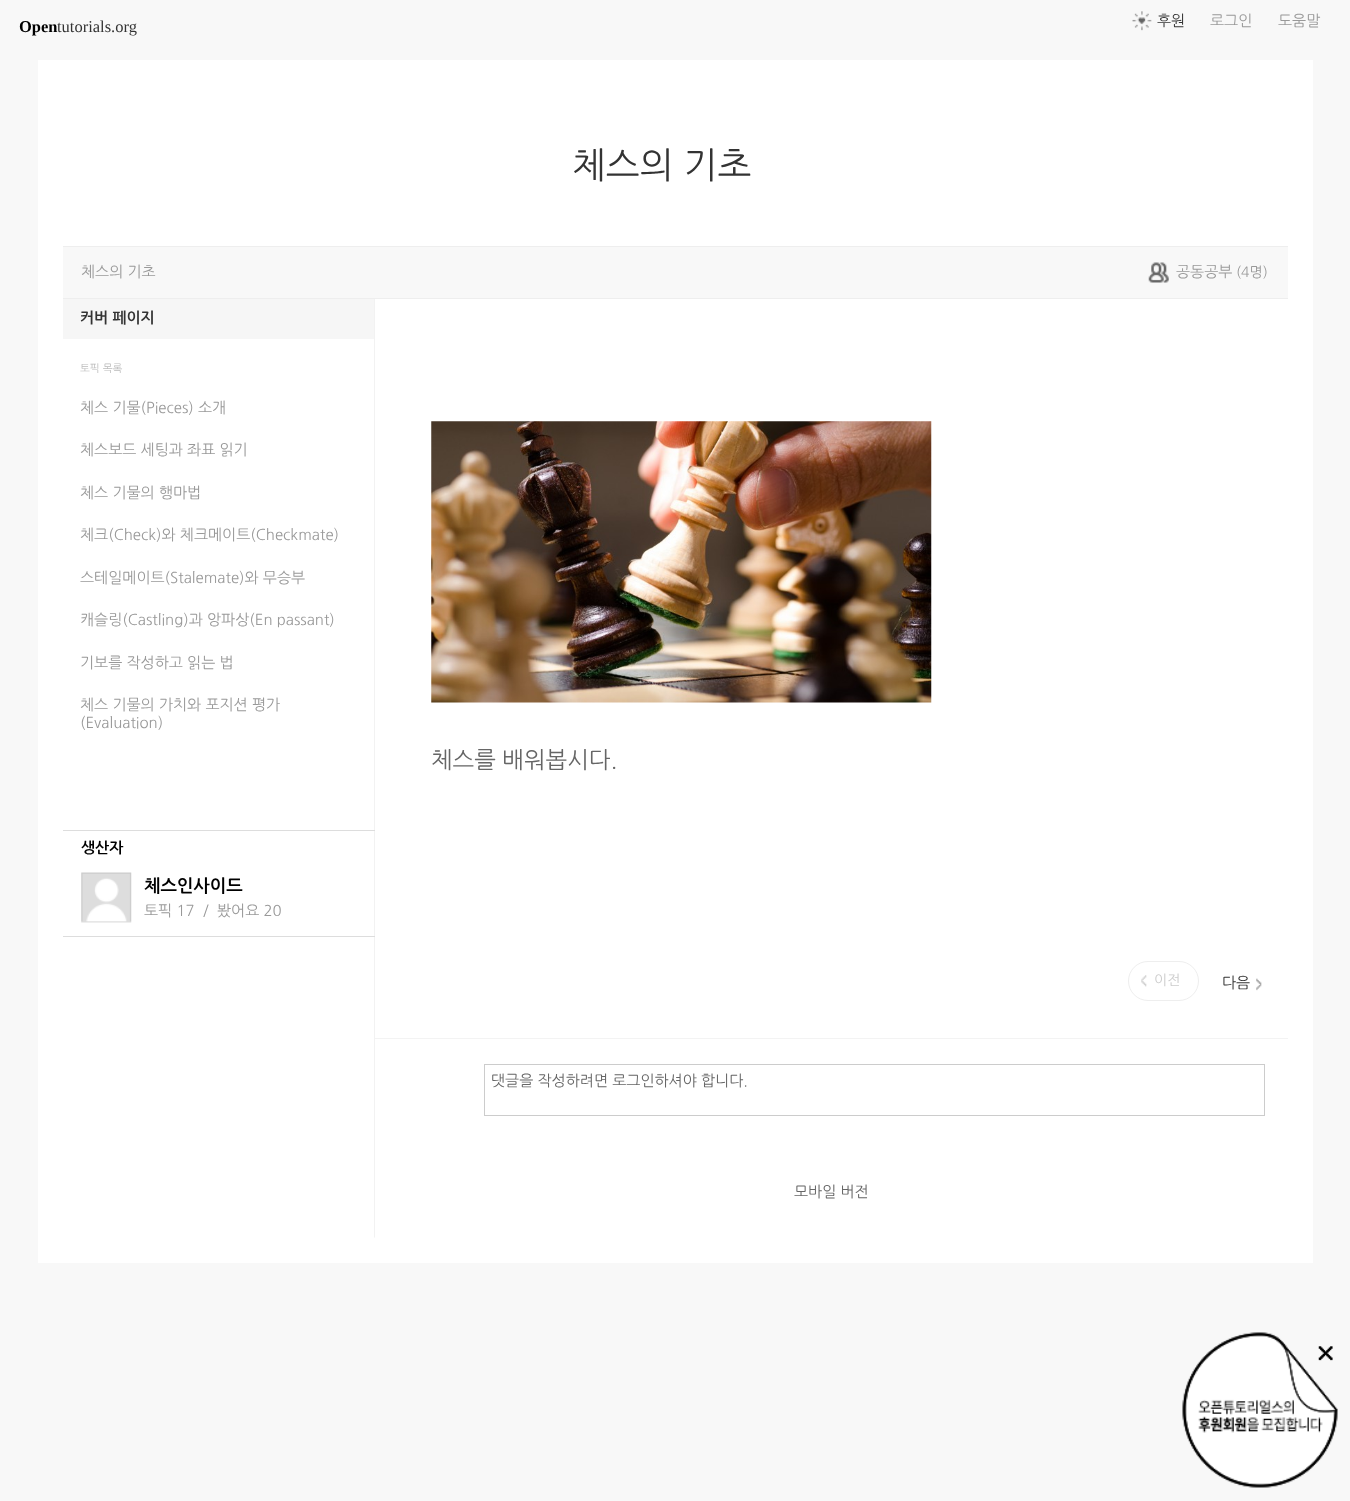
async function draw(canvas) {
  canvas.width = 1350
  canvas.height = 1501
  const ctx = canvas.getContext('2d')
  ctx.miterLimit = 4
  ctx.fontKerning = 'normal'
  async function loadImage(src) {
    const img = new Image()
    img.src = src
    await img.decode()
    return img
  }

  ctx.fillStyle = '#f8f8f8'
  ctx.fillRect(0, 0, 1350, 1501)
  ctx.font = 'bold 16.5px Liberation Serif'
  ctx.fillStyle = '#000'
  ctx.fillText('Open', 19, 32)
  ctx.font = '16.5px Liberation Serif'
  ctx.fillStyle = '#333'
  ctx.fillText('tutorials.org', 57, 32)
  ctx.drawImage(await loadImage('image0.png'), 1132, 11, 20, 20)
  ctx.font = '15px NanumGothic'
  ctx.fillText('후원', 1157, 26)
  ctx.fillStyle = '#999'
  ctx.fillText('로그인', 1210, 26)
  ctx.fillText('도움말', 1278, 26)
  ctx.fillStyle = '#fff'
  ctx.fillRect(38, 60, 1275, 1203)
  ctx.font = '36px NanumGothic'
  ctx.fillStyle = '#333'
  ctx.fillText('체스의 기초', 572, 178)
  ctx.fillStyle = '#f8f8f8'
  ctx.fillRect(63, 247, 1225, 51)
  ctx.fillStyle = '#eee'
  ctx.fillRect(63, 246, 1225, 1)
  ctx.fillRect(63, 298, 1225, 1)
  ctx.font = '15px NanumGothic'
  ctx.fillStyle = '#999'
  ctx.fillText('체스의 기초', 81, 277)
  ctx.drawImage(await loadImage('image1.png'), 1148, 262, 21, 21)
  ctx.fillText('공동공부', 1176, 277)
  ctx.font = '14px NanumGothic'
  ctx.fillText('(4명)', 1236, 277)
  ctx.drawImage(await loadImage('image2.png'), 374, 299, 1, 939)
  ctx.fillStyle = '#f6f6f6'
  ctx.fillRect(63, 299, 311, 40)
  ctx.font = 'bold 15px NanumGothic'
  ctx.fillStyle = '#333'
  ctx.fillText('커버 페이지', 80, 323)
  ctx.font = '10.5px NanumGothic'
  ctx.fillStyle = '#bbb'
  ctx.fillText('토픽 목록', 80, 372)
  ctx.font = '15px NanumGothic'
  ctx.fillStyle = '#999'
  ctx.fillText('체스 기물(Pieces) 소개', 80, 413)
  ctx.fillText('체스보드 세팅과 좌표 읽기', 80, 455)
  ctx.fillText('체스 기물의 행마법', 80, 498)
  ctx.fillText('체크(Check)와 체크메이트(Checkmate)', 80, 540)
  ctx.fillText('스테일메이트(Stalemate)와 무승부', 80, 583)
  ctx.fillText('캐슬링(Castling)과 앙파상(En passant)', 80, 625)
  ctx.fillText('기보를 작성하고 읽는 법', 80, 668)
  ctx.fillText('체스 기물의 가치와 포지션 평가', 80, 710)
  ctx.fillText('(Evaluation)', 80, 728)
  ctx.fillStyle = '#ddd'
  ctx.fillRect(63, 830, 312, 1)
  ctx.fillRect(63, 936, 312, 1)
  ctx.font = 'bold 15px NanumGothic'
  ctx.fillStyle = '#000'
  ctx.fillText('생산자', 81, 853)
  ctx.drawImage(await loadImage('image3.png'), 81, 872, 51, 51)
  ctx.font = 'bold 17.5px NanumGothic'
  ctx.fillText('체스인사이드', 144, 892)
  ctx.font = '15px NanumGothic'
  ctx.fillStyle = '#999'
  ctx.fillText('토픽 17  /  봤어요 20', 144, 916)
  ctx.drawImage(await loadImage('image4.png'), 431, 421, 501, 282)
  ctx.font = '23px NanumGothic'
  ctx.fillStyle = '#666'
  ctx.fillText('체스를 배워봅시다.', 431, 768)
  ctx.drawImage(await loadImage('image5.png'), 1141, 975, 6, 12)
  ctx.beginPath()
  ctx.roundRect(1128.5, 961.5, 70, 39, 19.5)
  ctx.strokeStyle = '#eee'
  ctx.stroke()
  ctx.font = '14px NanumGothic'
  ctx.fillStyle = '#ccc'
  ctx.fillText('이전', 1154, 985)
  ctx.drawImage(await loadImage('image6.png'), 1256, 978, 6, 13)
  ctx.font = '15px NanumGothic'
  ctx.fillStyle = '#333'
  ctx.fillText('다음', 1222, 988)
  ctx.fillStyle = '#f3f3f3'
  ctx.fillRect(375, 1038, 913, 1)
  ctx.strokeStyle = '#ccc'
  ctx.strokeRect(484.5, 1064.5, 780, 51)
  ctx.fillStyle = '#666'
  ctx.fillText('댓글을 작성하려면 로그인하셔야 합니다.', 491, 1086)
  ctx.fillText('모바일 버전', 794, 1197)
  ctx.drawImage(await loadImage('image7.png'), 1182, 1332, 156, 156)
  ctx.drawImage(await loadImage('image8.png'), 1318, 1346, 15, 15)
}

draw(document.querySelector('canvas'))
